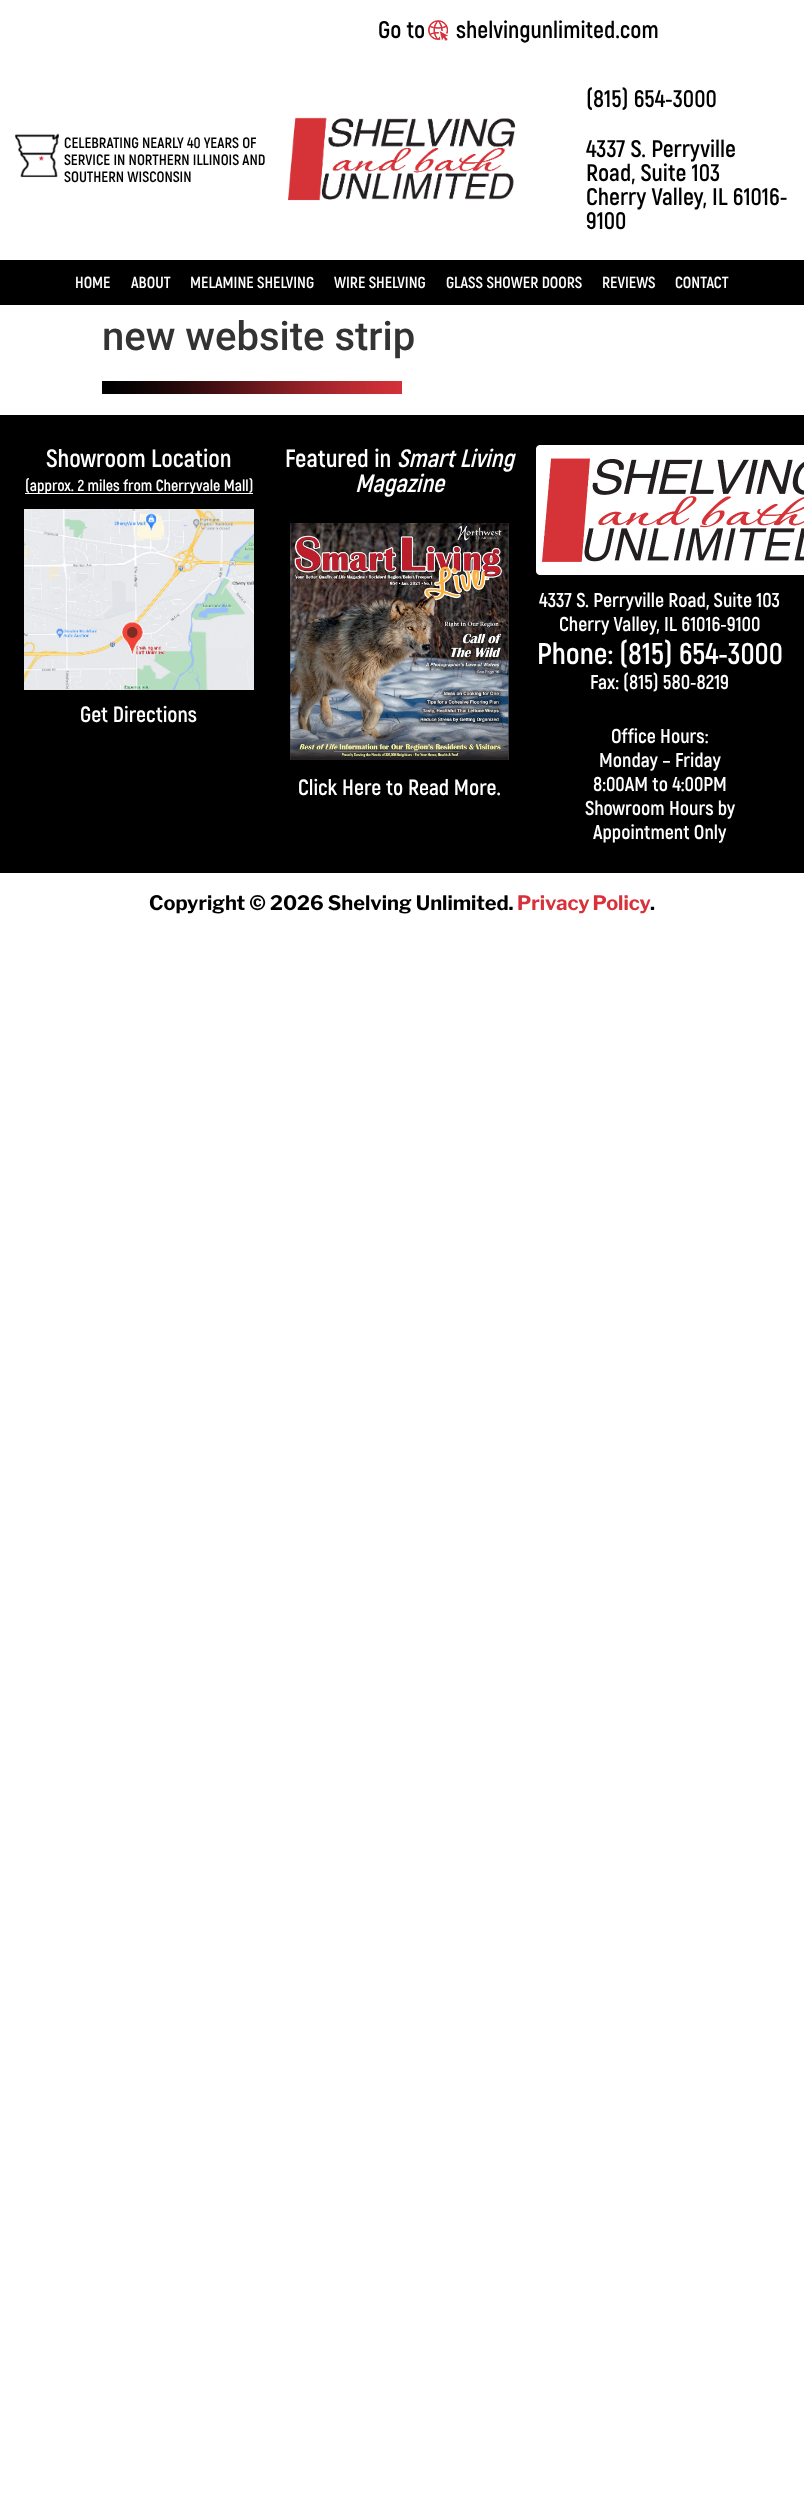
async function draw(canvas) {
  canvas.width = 804
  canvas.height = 2505
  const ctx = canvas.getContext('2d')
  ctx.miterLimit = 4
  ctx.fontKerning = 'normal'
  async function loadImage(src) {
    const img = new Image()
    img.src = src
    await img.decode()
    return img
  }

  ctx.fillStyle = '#fff'
  ctx.fillRect(0, 0, 804, 2505)
  ctx.font = 'bold 24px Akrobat'
  ctx.fillStyle = '#000'
  ctx.fillText('Go to', 378, 38)
  ctx.drawImage(await loadImage('image0.png'), 428, 20, 20, 21)
  ctx.fillText('shelvingunlimited.com', 456, 38)
  ctx.drawImage(await loadImage('image1.png'), 15, 133, 44, 45)
  ctx.font = 'bold 15px Akrobat'
  ctx.fillText('CELEBRATING NEARLY 40 YEARS OF', 64, 148)
  ctx.fillText('SERVICE IN NORTHERN ILLINOIS AND', 64, 165)
  ctx.fillText('SOUTHERN WISCONSIN', 64, 182)
  ctx.drawImage(await loadImage('image2.png'), 288, 117, 228, 84)
  ctx.font = 'bold 24px Akrobat'
  ctx.fillText('(815) 654-3000', 586, 107)
  ctx.fillText('4337 S. Perryville', 586, 157)
  ctx.fillText('Road, Suite 103', 586, 181)
  ctx.fillText('Cherry Valley, IL 61016-', 586, 205)
  ctx.fillText('9100', 586, 229)
  ctx.fillRect(0, 260, 804, 45)
  ctx.font = 'bold 16px Akrobat'
  ctx.fillStyle = '#fff'
  ctx.fillText('HOME', 75, 288)
  ctx.fillText('ABOUT', 131, 288)
  ctx.fillText('MELAMINE SHELVING', 190, 288)
  ctx.fillText('WIRE SHELVING', 334, 288)
  ctx.fillText('GLASS SHOWER DOORS', 446, 288)
  ctx.fillText('REVIEWS', 602, 288)
  ctx.fillText('CONTACT', 675, 288)
  ctx.font = '500 40px Roboto'
  ctx.fillStyle = '#333'
  ctx.fillText('new website strip', 102, 350)
  ctx.drawImage(await loadImage('image3.png'), 102, 381, 300, 13)
  ctx.fillStyle = '#000'
  ctx.fillRect(0, 415, 804, 458)
  ctx.font = 'bold 25px Akrobat'
  ctx.fillStyle = '#fff'
  ctx.fillText('Showroom Location', 46, 467)
  ctx.fillRect(25, 493, 228, 1)
  ctx.font = 'bold 16px Akrobat'
  ctx.fillText('(approx. 2 miles from Cherryvale Mall)', 25, 491)
  ctx.drawImage(await loadImage('image4.png'), 24, 509, 230, 181)
  ctx.font = 'bold 22px Akrobat'
  ctx.fillText('Get Directions', 80, 722)
  ctx.font = 'bold 25px Akrobat'
  ctx.fillText('Featured in', 285, 467)
  ctx.font = 'italic bold 25px Akrobat'
  ctx.fillText('Smart Living', 397, 467)
  ctx.fillText('Magazine', 355, 492)
  ctx.drawImage(await loadImage('image5.png'), 290, 523, 219, 237)
  ctx.font = 'bold 22px Akrobat'
  ctx.fillText('Click Here to Read More.', 298, 795)
  ctx.drawImage(await loadImage('image6.png'), 536, 445, 268, 130)
  ctx.font = 'bold 20px Akrobat'
  ctx.fillText('4337 S. Perryville Road, Suite 103', 539, 607)
  ctx.fillText('Cherry Valley, IL 61016-9100', 559, 631)
  ctx.font = 'bold 30px Akrobat'
  ctx.fillText('Phone: (815) 654-3000', 537, 664)
  ctx.font = 'bold 20px Akrobat'
  ctx.fillText('Fax: (815) 580-8219', 590, 689)
  ctx.fillText('Office Hours:', 611, 743)
  ctx.fillText('Monday – Friday', 599, 767)
  ctx.fillText('8:00AM to 4:00PM', 593, 791)
  ctx.fillText('Showroom Hours by', 585, 815)
  ctx.fillText('Appointment Only', 593, 839)
  ctx.font = 'bold 20px Libre Franklin'
  ctx.fillStyle = '#000'
  ctx.fillText('Copyright © 2026 Shelving Unlimited.', 149, 910)
  ctx.wordSpacing = '-1px'
  ctx.fillStyle = '#d83139'
  ctx.fillText('Privacy Policy', 517, 910)
  ctx.wordSpacing = '0px'
  ctx.fillStyle = '#000'
  ctx.fillText('.', 650, 910)
}

draw(document.querySelector('canvas'))
